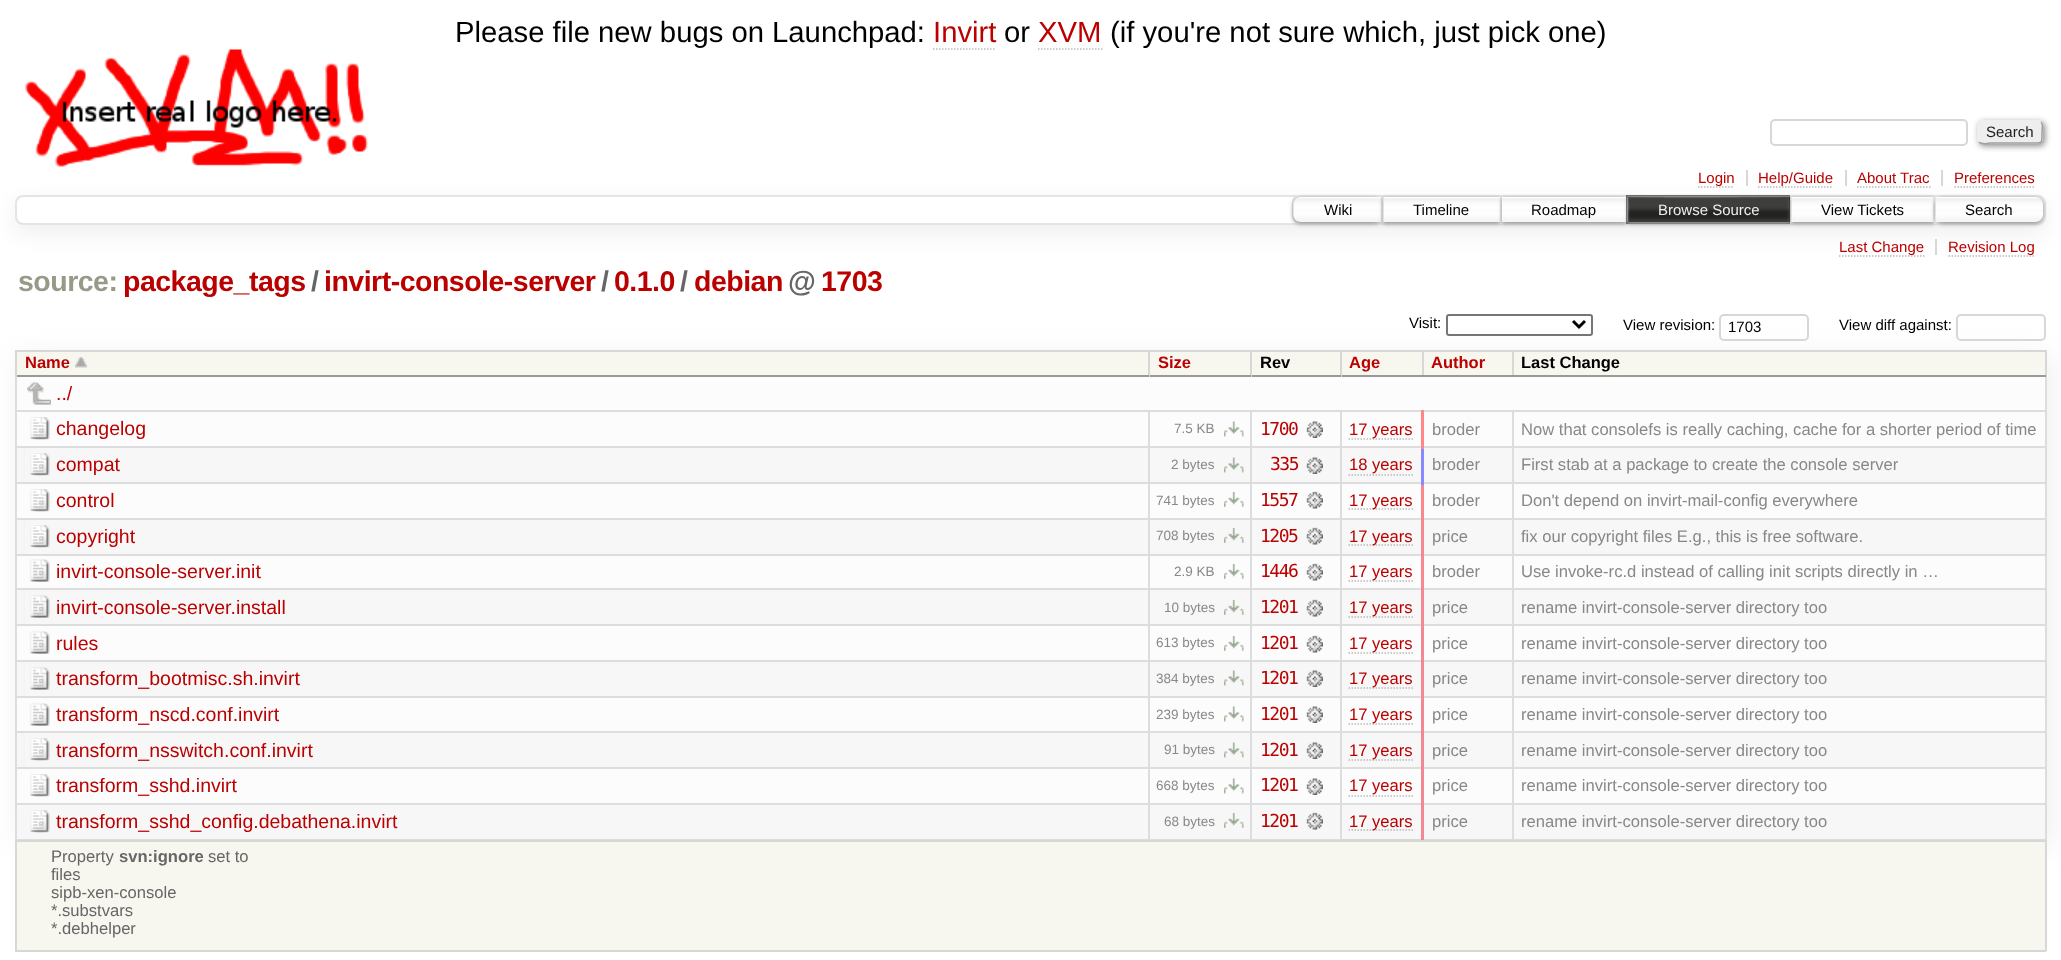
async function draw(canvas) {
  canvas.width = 2061
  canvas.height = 960
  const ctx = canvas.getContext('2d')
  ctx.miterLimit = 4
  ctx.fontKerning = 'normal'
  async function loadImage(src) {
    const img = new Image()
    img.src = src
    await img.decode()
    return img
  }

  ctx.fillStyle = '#fff'
  ctx.fillRect(0, 0, 2061, 960)
  ctx.font = '29.25px Liberation Sans'
  ctx.fillStyle = '#000'
  ctx.fillText('Please file new bugs on Launchpad:', 455, 42)
  ctx.fillStyle = '#b00'
  ctx.fillText('Invirt', 933, 42)
  ctx.beginPath()
  ctx.moveTo(933, 49)
  ctx.lineTo(996, 49)
  ctx.strokeStyle = '#bbb'
  ctx.lineWidth = 1.5
  ctx.setLineDash([1.5, 1.5])
  ctx.stroke()
  ctx.fillStyle = '#000'
  ctx.fillText('or', 1004, 42)
  ctx.fillStyle = '#b00'
  ctx.fillText('XVM', 1038, 42)
  ctx.beginPath()
  ctx.moveTo(1038, 49)
  ctx.lineTo(1102.5, 49)
  ctx.stroke()
  ctx.fillStyle = '#000'
  ctx.fillText('(if you\'re not sure which, just pick one)', 1110, 42)
  ctx.drawImage(await loadImage('image0.png'), 25, 49, 343, 118)
  ctx.beginPath()
  ctx.roundRect(1771, 120, 196, 25, 4)
  ctx.strokeStyle = '#d7d7d7'
  ctx.lineWidth = 2
  ctx.setLineDash([])
  ctx.stroke()
  ctx.fillStyle = '#888'
  ctx.filter = 'blur(3px)'
  ctx.beginPath()
  ctx.roundRect(1979, 122, 66, 24, 5)
  ctx.fill()
  ctx.filter = 'none'
  ctx.fillStyle = '#eee'
  ctx.beginPath()
  ctx.roundRect(1977, 120, 66, 24, 5)
  ctx.fill()
  ctx.beginPath()
  ctx.moveTo(2041, 122)
  ctx.bezierCurveTo(2043.5, 124, 2042, 129, 2042, 132)
  ctx.bezierCurveTo(2042, 145, 2043, 143, 2029, 143)
  ctx.lineTo(1991, 143)
  ctx.bezierCurveTo(1990.5, 143, 1981.5, 145, 1979, 142)
  ctx.strokeStyle = '#9f9f9f'
  ctx.lineWidth = 1.5
  ctx.stroke()
  ctx.beginPath()
  ctx.moveTo(1979, 142)
  ctx.bezierCurveTo(1976.5, 140, 1978, 135, 1978, 132)
  ctx.bezierCurveTo(1978, 119, 1977, 121, 1991, 121)
  ctx.lineTo(2029, 121)
  ctx.bezierCurveTo(2029.5, 121, 2038.5, 119, 2041, 122)
  ctx.strokeStyle = '#eee'
  ctx.stroke()
  ctx.font = '15px Liberation Sans'
  ctx.fillStyle = '#222'
  ctx.fillText('Search', 1986, 137)
  ctx.save()
  ctx.beginPath()
  ctx.moveTo(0, 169)
  ctx.lineTo(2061, 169)
  ctx.lineTo(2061, 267)
  ctx.lineTo(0, 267)
  ctx.closePath()
  ctx.moveTo(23, 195)
  ctx.lineTo(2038, 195)
  ctx.bezierCurveTo(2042.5, 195, 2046, 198.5, 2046, 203)
  ctx.lineTo(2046, 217)
  ctx.bezierCurveTo(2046, 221.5, 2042.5, 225, 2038, 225)
  ctx.lineTo(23, 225)
  ctx.bezierCurveTo(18.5, 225, 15, 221.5, 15, 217)
  ctx.lineTo(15, 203)
  ctx.bezierCurveTo(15, 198.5, 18.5, 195, 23, 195)
  ctx.closePath()
  ctx.clip('evenodd')
  ctx.fillStyle = '#eee'
  ctx.filter = 'blur(11px)'
  ctx.beginPath()
  ctx.roundRect(15, 203, 2031, 30, 8)
  ctx.fill()
  ctx.filter = 'none'
  ctx.restore()
  ctx.fillStyle = '#d7d7d7'
  ctx.fillRect(1746, 170, 2, 16)
  ctx.beginPath()
  ctx.moveTo(1698, 187)
  ctx.lineTo(1734, 187)
  ctx.strokeStyle = '#bbb'
  ctx.setLineDash([1.5, 1.5])
  ctx.stroke()
  ctx.fillStyle = '#b00'
  ctx.fillText('Login', 1698, 183)
  ctx.fillStyle = '#d7d7d7'
  ctx.fillRect(1845, 170, 2, 16)
  ctx.beginPath()
  ctx.moveTo(1758, 187)
  ctx.lineTo(1833, 187)
  ctx.stroke()
  ctx.fillStyle = '#b00'
  ctx.fillText('Help/Guide', 1758, 183)
  ctx.fillStyle = '#d7d7d7'
  ctx.fillRect(1941, 170, 2, 16)
  ctx.fillStyle = '#b00'
  ctx.fillText('About Trac', 1857, 183)
  ctx.beginPath()
  ctx.moveTo(1857, 187)
  ctx.lineTo(1930.5, 187)
  ctx.stroke()
  ctx.fillText('Preferences', 1954, 183)
  ctx.beginPath()
  ctx.moveTo(1954.5, 187)
  ctx.lineTo(2035.5, 187)
  ctx.stroke()
  ctx.beginPath()
  ctx.roundRect(16, 196, 2029, 28, 7)
  ctx.strokeStyle = '#e4e4e4'
  ctx.lineWidth = 2
  ctx.setLineDash([])
  ctx.stroke()
  ctx.fillStyle = '#fff'
  ctx.beginPath()
  ctx.roundRect(1292, 195, 91, 29, [8, 0, 0, 8])
  ctx.fill()
  ctx.drawImage(await loadImage('image1.png'), 1292, 198, 89, 25)
  ctx.beginPath()
  ctx.roundRect(1293, 196, 89, 27, [7, 0, 0, 7])
  ctx.stroke()
  ctx.save()
  ctx.beginPath()
  ctx.moveTo(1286, 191)
  ctx.lineTo(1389, 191)
  ctx.lineTo(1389, 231)
  ctx.lineTo(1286, 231)
  ctx.closePath()
  ctx.moveTo(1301, 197)
  ctx.lineTo(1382, 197)
  ctx.lineTo(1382, 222)
  ctx.lineTo(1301, 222)
  ctx.bezierCurveTo(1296.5, 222, 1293, 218.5, 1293, 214)
  ctx.lineTo(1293, 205)
  ctx.bezierCurveTo(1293, 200.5, 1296.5, 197, 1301, 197)
  ctx.closePath()
  ctx.clip('evenodd')
  ctx.fillStyle = '#999'
  ctx.filter = 'blur(2px)'
  ctx.beginPath()
  ctx.roundRect(1293, 198, 89, 26, 8)
  ctx.fill()
  ctx.filter = 'none'
  ctx.restore()
  ctx.fillStyle = '#000'
  ctx.fillText('Wiki', 1324, 215)
  ctx.fillStyle = '#fff'
  ctx.fillRect(1384, 201, 2, 20)
  ctx.drawImage(await loadImage('image2.png'), 1381, 198, 119, 24)
  ctx.strokeRect(1383, 196, 118, 27)
  ctx.save()
  ctx.beginPath()
  ctx.moveTo(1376, 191)
  ctx.lineTo(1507, 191)
  ctx.lineTo(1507, 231)
  ctx.lineTo(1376, 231)
  ctx.closePath()
  ctx.moveTo(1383, 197)
  ctx.lineTo(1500, 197)
  ctx.lineTo(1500, 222)
  ctx.lineTo(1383, 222)
  ctx.closePath()
  ctx.clip('evenodd')
  ctx.fillStyle = '#999'
  ctx.filter = 'blur(2px)'
  ctx.beginPath()
  ctx.rect(1383, 198, 117, 26)
  ctx.fill()
  ctx.filter = 'none'
  ctx.restore()
  ctx.fillStyle = '#000'
  ctx.fillText('Timeline', 1413, 215)
  ctx.fillStyle = '#fff'
  ctx.fillRect(1502, 197, 2, 25)
  ctx.drawImage(await loadImage('image3.png'), 1502, 198, 124, 24)
  ctx.strokeRect(1501, 196, 126, 27)
  ctx.save()
  ctx.beginPath()
  ctx.moveTo(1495, 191)
  ctx.lineTo(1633, 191)
  ctx.lineTo(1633, 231)
  ctx.lineTo(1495, 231)
  ctx.closePath()
  ctx.moveTo(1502, 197)
  ctx.lineTo(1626, 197)
  ctx.lineTo(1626, 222)
  ctx.lineTo(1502, 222)
  ctx.closePath()
  ctx.clip('evenodd')
  ctx.fillStyle = '#999'
  ctx.filter = 'blur(2px)'
  ctx.beginPath()
  ctx.rect(1502, 198, 124, 26)
  ctx.fill()
  ctx.filter = 'none'
  ctx.restore()
  ctx.fillStyle = '#000'
  ctx.fillText('Roadmap', 1531, 215)
  ctx.strokeStyle = '#666'
  ctx.strokeRect(1627, 196, 163, 27)
  ctx.fillStyle = '#999'
  ctx.filter = 'blur(2px)'
  ctx.beginPath()
  ctx.rect(1628, 198, 162, 26)
  ctx.fill()
  ctx.filter = 'none'
  ctx.fillStyle = '#000'
  ctx.fillRect(1628, 197, 162, 25)
  ctx.drawImage(await loadImage('image4.png'), 1627, 196, 163, 26)
  ctx.fillStyle = '#eee'
  ctx.fillText('Browse Source', 1658, 215)
  ctx.fillStyle = '#fff'
  ctx.fillRect(1792, 197, 2, 25)
  ctx.drawImage(await loadImage('image5.png'), 1789, 198, 144, 24)
  ctx.strokeStyle = '#e4e4e4'
  ctx.strokeRect(1791, 196, 143, 27)
  ctx.save()
  ctx.beginPath()
  ctx.moveTo(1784, 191)
  ctx.lineTo(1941, 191)
  ctx.lineTo(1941, 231)
  ctx.lineTo(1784, 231)
  ctx.closePath()
  ctx.moveTo(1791, 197)
  ctx.lineTo(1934, 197)
  ctx.lineTo(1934, 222)
  ctx.lineTo(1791, 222)
  ctx.closePath()
  ctx.clip('evenodd')
  ctx.fillStyle = '#999'
  ctx.filter = 'blur(2px)'
  ctx.beginPath()
  ctx.rect(1791, 198, 143, 26)
  ctx.fill()
  ctx.filter = 'none'
  ctx.restore()
  ctx.fillStyle = '#000'
  ctx.fillText('View Tickets', 1821, 215)
  ctx.fillStyle = '#fff'
  ctx.beginPath()
  ctx.roundRect(1934, 195, 111, 29, [0, 8, 8, 0])
  ctx.fill()
  ctx.drawImage(await loadImage('image6.png'), 1936, 198, 108, 24)
  ctx.beginPath()
  ctx.roundRect(1935, 196, 109, 27, [0, 7, 7, 0])
  ctx.stroke()
  ctx.save()
  ctx.beginPath()
  ctx.moveTo(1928, 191)
  ctx.lineTo(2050, 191)
  ctx.lineTo(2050, 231)
  ctx.lineTo(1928, 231)
  ctx.closePath()
  ctx.moveTo(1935, 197)
  ctx.lineTo(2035, 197)
  ctx.bezierCurveTo(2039.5, 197, 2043, 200.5, 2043, 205)
  ctx.lineTo(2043, 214)
  ctx.bezierCurveTo(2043, 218.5, 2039.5, 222, 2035, 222)
  ctx.lineTo(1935, 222)
  ctx.closePath()
  ctx.clip('evenodd')
  ctx.fillStyle = '#999'
  ctx.filter = 'blur(2px)'
  ctx.beginPath()
  ctx.roundRect(1935, 198, 108, 26, 8)
  ctx.fill()
  ctx.filter = 'none'
  ctx.restore()
  ctx.fillStyle = '#000'
  ctx.fillText('Search', 1965, 215)
  ctx.fillStyle = '#d7d7d7'
  ctx.fillRect(1935, 239, 2, 16)
  ctx.beginPath()
  ctx.moveTo(1839, 256)
  ctx.lineTo(1924.5, 256)
  ctx.strokeStyle = '#bbb'
  ctx.lineWidth = 1.5
  ctx.setLineDash([1.5, 1.5])
  ctx.stroke()
  ctx.fillStyle = '#b00'
  ctx.fillText('Last Change', 1839, 252)
  ctx.beginPath()
  ctx.moveTo(1948.5, 256)
  ctx.lineTo(2035.5, 256)
  ctx.stroke()
  ctx.fillText('Revision Log', 1948, 252)
  ctx.letterSpacing = '-0.5px'
  ctx.font = 'bold 28.5px Liberation Sans'
  ctx.fillStyle = '#998'
  ctx.fillText('source:', 18, 291)
  ctx.fillStyle = '#b00'
  ctx.fillText('package_tags', 123, 291)
  ctx.fillStyle = '#666'
  ctx.fillText('/', 311, 291)
  ctx.fillStyle = '#b00'
  ctx.fillText('invirt-console-server', 324, 291)
  ctx.fillStyle = '#666'
  ctx.fillText('/', 601, 291)
  ctx.fillStyle = '#b00'
  ctx.fillText('0.1.0', 614, 291)
  ctx.fillStyle = '#666'
  ctx.fillText('/', 680, 291)
  ctx.fillStyle = '#b00'
  ctx.fillText('debian', 694, 291)
  ctx.fillStyle = '#666'
  ctx.fillText('@', 788, 291)
  ctx.fillStyle = '#b00'
  ctx.fillText('1703', 821, 291)
  ctx.fillStyle = '#eee'
  ctx.filter = 'blur(14.5px)'
  ctx.beginPath()
  ctx.rect(20, 356, 2031, 490)
  ctx.fill()
  ctx.filter = 'none'
  ctx.letterSpacing = '0px'
  ctx.font = '15px Liberation Sans'
  ctx.fillStyle = '#000'
  ctx.fillText('Visit:', 1409, 328)
  ctx.beginPath()
  ctx.roundRect(1447, 315, 145, 20, 2)
  ctx.strokeStyle = '#767676'
  ctx.lineWidth = 2
  ctx.setLineDash([])
  ctx.stroke()
  ctx.beginPath()
  ctx.moveTo(1573, 321)
  ctx.lineTo(1579, 327)
  ctx.lineTo(1585, 321)
  ctx.strokeStyle = '#000'
  ctx.lineWidth = 3
  ctx.stroke()
  ctx.fillText('View revision:', 1623, 330)
  ctx.beginPath()
  ctx.roundRect(1720, 315, 88, 25, 4)
  ctx.strokeStyle = '#d7d7d7'
  ctx.lineWidth = 2
  ctx.stroke()
  ctx.fillText('1703', 1728, 332)
  ctx.fillText('View diff against:', 1839, 330)
  ctx.beginPath()
  ctx.roundRect(1957, 315, 88, 25, 4)
  ctx.stroke()
  ctx.fillStyle = '#d7d7d7'
  ctx.fillRect(1342, 839, 79, 1)
  ctx.fillStyle = '#f7f7f0'
  ctx.fillRect(17, 352, 2028, 23)
  ctx.fillStyle = '#d7d7d7'
  ctx.fillRect(1512, 350, 534, 2)
  ctx.fillStyle = '#ddd'
  ctx.fillRect(15, 410, 2031, 2)
  ctx.fillRect(15, 446, 2031, 2)
  ctx.fillRect(15, 482, 2031, 2)
  ctx.fillRect(15, 518, 2031, 2)
  ctx.fillRect(15, 554, 2031, 2)
  ctx.fillRect(15, 588, 2031, 2)
  ctx.fillRect(15, 624, 2031, 2)
  ctx.fillRect(15, 660, 2031, 2)
  ctx.fillRect(15, 696, 2031, 2)
  ctx.fillRect(15, 731, 2031, 2)
  ctx.fillRect(15, 767, 2031, 2)
  ctx.fillRect(15, 803, 2031, 2)
  ctx.fillRect(2045, 375, 2, 465)
  ctx.fillStyle = '#d7d7d7'
  ctx.fillRect(2045, 350, 2, 27)
  ctx.fillStyle = '#999'
  ctx.fillRect(1512, 375, 534, 2)
  ctx.fillStyle = '#d7d7d7'
  ctx.fillRect(1512, 350, 2, 27)
  ctx.fillRect(1422, 350, 92, 2)
  ctx.fillStyle = '#999'
  ctx.fillRect(1422, 375, 92, 2)
  ctx.fillStyle = '#d7d7d7'
  ctx.fillRect(1422, 350, 2, 27)
  ctx.fillRect(1340, 350, 84, 2)
  ctx.fillStyle = '#999'
  ctx.fillRect(1340, 375, 84, 2)
  ctx.fillStyle = '#d7d7d7'
  ctx.fillRect(1340, 350, 2, 27)
  ctx.fillRect(1250, 350, 91, 2)
  ctx.fillStyle = '#999'
  ctx.fillRect(1250, 375, 91, 2)
  ctx.fillStyle = '#d7d7d7'
  ctx.fillRect(1250, 350, 2, 27)
  ctx.fillRect(1148, 350, 103, 2)
  ctx.fillStyle = '#999'
  ctx.fillRect(1148, 375, 103, 2)
  ctx.fillStyle = '#d7d7d7'
  ctx.fillRect(1148, 350, 2, 27)
  ctx.fillRect(15, 350, 1134, 2)
  ctx.fillStyle = '#fcfcfc'
  ctx.fillRect(17, 412, 2028, 34)
  ctx.fillStyle = '#f7f7f7'
  ctx.fillRect(25, 448, 2020, 34)
  ctx.fillStyle = '#fcfcfc'
  ctx.fillRect(17, 484, 2028, 34)
  ctx.fillStyle = '#f7f7f7'
  ctx.fillRect(25, 520, 2020, 34)
  ctx.fillStyle = '#fcfcfc'
  ctx.fillRect(17, 556, 2028, 32)
  ctx.fillStyle = '#f7f7f7'
  ctx.fillRect(25, 590, 2020, 34)
  ctx.fillStyle = '#fcfcfc'
  ctx.fillRect(17, 626, 2028, 34)
  ctx.fillStyle = '#f7f7f7'
  ctx.fillRect(25, 662, 2020, 34)
  ctx.fillStyle = '#fcfcfc'
  ctx.fillRect(17, 698, 2028, 33)
  ctx.fillStyle = '#f7f7f7'
  ctx.fillRect(25, 733, 2020, 34)
  ctx.fillStyle = '#fcfcfc'
  ctx.fillRect(17, 769, 2028, 34)
  ctx.fillStyle = '#f7f7f7'
  ctx.fillRect(17, 805, 2028, 34)
  ctx.fillStyle = '#ddd'
  ctx.fillRect(1340, 410, 2, 430)
  ctx.fillRect(1250, 839, 91, 1)
  ctx.fillRect(1250, 410, 2, 430)
  ctx.fillRect(1148, 839, 103, 1)
  ctx.fillRect(1148, 410, 2, 430)
  ctx.fillRect(15, 839, 1134, 1)
  ctx.fillRect(15, 375, 2, 465)
  ctx.fillStyle = '#999'
  ctx.fillRect(15, 375, 1134, 2)
  ctx.fillStyle = '#d7d7d7'
  ctx.fillRect(15, 350, 2, 27)
  ctx.font = 'bold 16.5px Liberation Sans'
  ctx.fillStyle = '#b00'
  ctx.fillText('Name', 25, 368)
  ctx.drawImage(await loadImage('image7.png'), 75, 357, 12, 11)
  ctx.fillText('Size', 1158, 368)
  ctx.fillStyle = '#000'
  ctx.fillText('Rev', 1260, 368)
  ctx.fillStyle = '#b00'
  ctx.fillText('Age', 1349, 368)
  ctx.fillText('Author', 1431, 368)
  ctx.fillStyle = '#000'
  ctx.fillText('Last Change', 1521, 368)
  ctx.fillStyle = '#fcfcfc'
  ctx.fillRect(17, 377, 2028, 33)
  ctx.drawImage(await loadImage('image8.png'), 27, 382, 24, 23)
  ctx.font = '19.5px Liberation Sans'
  ctx.fillStyle = '#b00'
  ctx.fillText('../', 56, 400)
  ctx.drawImage(await loadImage('image9.png'), 30, 417, 20, 23)
  ctx.fillText('changelog', 56, 435)
  ctx.font = '13.5px Liberation Sans'
  ctx.fillStyle = '#888'
  ctx.fillText('7.5 KB', 1174, 433)
  ctx.drawImage(await loadImage('image10.png'), 1224, 421, 20, 16)
  ctx.letterSpacing = '-1.5px'
  ctx.font = '18px DejaVu Sans Mono'
  ctx.fillStyle = '#b00'
  ctx.fillText('1700', 1260, 435)
  ctx.drawImage(await loadImage('image11.png'), 1306, 421, 17, 17)
  ctx.fillStyle = '#ddd'
  ctx.fillRect(1512, 839, 534, 1)
  ctx.fillRect(1512, 410, 2, 430)
  ctx.fillRect(1422, 839, 92, 1)
  ctx.fillStyle = '#f28894'
  ctx.fillRect(1421, 588, 3, 252)
  ctx.fillStyle = '#f68890'
  ctx.fillRect(1421, 552, 3, 39)
  ctx.fillStyle = '#f28894'
  ctx.fillRect(1421, 516, 3, 39)
  ctx.fillStyle = '#f9888d'
  ctx.fillRect(1421, 482, 3, 37)
  ctx.fillStyle = '#88f'
  ctx.fillRect(1421, 446, 3, 39)
  ctx.fillStyle = '#fe8888'
  ctx.fillRect(1421, 410, 3, 39)
  ctx.beginPath()
  ctx.moveTo(1348.5, 439)
  ctx.lineTo(1413, 439)
  ctx.strokeStyle = '#bbb'
  ctx.lineWidth = 1.5
  ctx.setLineDash([1.5, 1.5])
  ctx.stroke()
  ctx.letterSpacing = '0px'
  ctx.font = '16.6px Liberation Sans'
  ctx.fillStyle = '#b00'
  ctx.fillText('17 years', 1349, 435)
  ctx.fillStyle = '#888'
  ctx.fillText('broder', 1432, 435)
  ctx.fillText('Now that consolefs is really caching, cache for a shorter period of time', 1521, 435)
  ctx.drawImage(await loadImage('image12.png'), 30, 453, 20, 23)
  ctx.font = '19.5px Liberation Sans'
  ctx.fillStyle = '#b00'
  ctx.fillText('compat', 56, 471)
  ctx.font = '13.5px Liberation Sans'
  ctx.fillStyle = '#888'
  ctx.fillText('2 bytes', 1171, 469)
  ctx.drawImage(await loadImage('image13.png'), 1224, 457, 20, 16)
  ctx.letterSpacing = '-1.5px'
  ctx.font = '18px DejaVu Sans Mono'
  ctx.fillStyle = '#b00'
  ctx.fillText('335', 1270, 470)
  ctx.drawImage(await loadImage('image14.png'), 1306, 457, 17, 17)
  ctx.letterSpacing = '0px'
  ctx.font = '16.6px Liberation Sans'
  ctx.fillText('18 years', 1349, 470)
  ctx.beginPath()
  ctx.moveTo(1348.5, 475)
  ctx.lineTo(1413, 475)
  ctx.stroke()
  ctx.fillStyle = '#888'
  ctx.fillText('broder', 1432, 470)
  ctx.fillText('First stab at a package to create the console server', 1521, 470)
  ctx.drawImage(await loadImage('image9.png'), 30, 489, 20, 23)
  ctx.font = '19.5px Liberation Sans'
  ctx.fillStyle = '#b00'
  ctx.fillText('control', 56, 507)
  ctx.font = '13.5px Liberation Sans'
  ctx.fillStyle = '#888'
  ctx.fillText('741 bytes', 1156, 505)
  ctx.drawImage(await loadImage('image15.png'), 1224, 492, 20, 15)
  ctx.letterSpacing = '-1.5px'
  ctx.font = '18px DejaVu Sans Mono'
  ctx.fillStyle = '#b00'
  ctx.fillText('1557', 1260, 506)
  ctx.drawImage(await loadImage('image16.png'), 1306, 491, 17, 18)
  ctx.beginPath()
  ctx.moveTo(1348.5, 509)
  ctx.lineTo(1413, 509)
  ctx.stroke()
  ctx.letterSpacing = '0px'
  ctx.font = '16.6px Liberation Sans'
  ctx.fillText('17 years', 1349, 506)
  ctx.fillStyle = '#888'
  ctx.fillText('broder', 1432, 506)
  ctx.fillText('Don\'t depend on invirt-mail-config everywhere', 1521, 506)
  ctx.drawImage(await loadImage('image12.png'), 30, 525, 20, 23)
  ctx.font = '19.5px Liberation Sans'
  ctx.fillStyle = '#b00'
  ctx.fillText('copyright', 56, 543)
  ctx.font = '13.5px Liberation Sans'
  ctx.fillStyle = '#888'
  ctx.fillText('708 bytes', 1156, 540)
  ctx.drawImage(await loadImage('image17.png'), 1224, 528, 20, 15)
  ctx.letterSpacing = '-1.5px'
  ctx.font = '18px DejaVu Sans Mono'
  ctx.fillStyle = '#b00'
  ctx.fillText('1205', 1260, 542)
  ctx.drawImage(await loadImage('image18.png'), 1306, 527, 17, 18)
  ctx.beginPath()
  ctx.moveTo(1348.5, 545)
  ctx.lineTo(1413, 545)
  ctx.stroke()
  ctx.letterSpacing = '0px'
  ctx.font = '16.6px Liberation Sans'
  ctx.fillText('17 years', 1349, 542)
  ctx.fillStyle = '#888'
  ctx.fillText('price', 1432, 542)
  ctx.fillText('fix our copyright files E.g., this is free software.', 1521, 542)
  ctx.drawImage(await loadImage('image19.png'), 29, 559, 21, 23)
  ctx.font = '19.5px Liberation Sans'
  ctx.fillStyle = '#b00'
  ctx.fillText('invirt-console-server.init', 56, 578)
  ctx.font = '13.5px Liberation Sans'
  ctx.fillStyle = '#888'
  ctx.fillText('2.9 KB', 1174, 576)
  ctx.drawImage(await loadImage('image15.png'), 1224, 564, 20, 15)
  ctx.letterSpacing = '-1.5px'
  ctx.font = '18px DejaVu Sans Mono'
  ctx.fillStyle = '#b00'
  ctx.fillText('1446', 1260, 577)
  ctx.drawImage(await loadImage('image16.png'), 1306, 563, 17, 18)
  ctx.beginPath()
  ctx.moveTo(1348.5, 581)
  ctx.lineTo(1413, 581)
  ctx.stroke()
  ctx.letterSpacing = '0px'
  ctx.font = '16.6px Liberation Sans'
  ctx.fillText('17 years', 1349, 577)
  ctx.fillStyle = '#888'
  ctx.fillText('broder', 1432, 577)
  ctx.fillText('Use invoke-rc.d instead of calling init scripts directly in …', 1521, 577)
  ctx.drawImage(await loadImage('image20.png'), 29, 595, 21, 23)
  ctx.font = '19.5px Liberation Sans'
  ctx.fillStyle = '#b00'
  ctx.fillText('invirt-console-server.install', 56, 614)
  ctx.font = '13.5px Liberation Sans'
  ctx.fillStyle = '#888'
  ctx.fillText('10 bytes', 1164, 612)
  ctx.drawImage(await loadImage('image17.png'), 1224, 600, 20, 15)
  ctx.letterSpacing = '-1.5px'
  ctx.font = '18px DejaVu Sans Mono'
  ctx.fillStyle = '#b00'
  ctx.fillText('1201', 1260, 613)
  ctx.drawImage(await loadImage('image18.png'), 1306, 599, 17, 18)
  ctx.beginPath()
  ctx.moveTo(1348.5, 617)
  ctx.lineTo(1413, 617)
  ctx.stroke()
  ctx.letterSpacing = '0px'
  ctx.font = '16.6px Liberation Sans'
  ctx.fillText('17 years', 1349, 613)
  ctx.fillStyle = '#888'
  ctx.fillText('price', 1432, 613)
  ctx.fillText('rename invirt-console-server directory too', 1521, 613)
  ctx.drawImage(await loadImage('image19.png'), 29, 631, 21, 23)
  ctx.font = '19.5px Liberation Sans'
  ctx.fillStyle = '#b00'
  ctx.fillText('rules', 56, 650)
  ctx.font = '13.5px Liberation Sans'
  ctx.fillStyle = '#888'
  ctx.fillText('613 bytes', 1156, 647)
  ctx.drawImage(await loadImage('image15.png'), 1224, 636, 20, 15)
  ctx.letterSpacing = '-1.5px'
  ctx.font = '18px DejaVu Sans Mono'
  ctx.fillStyle = '#b00'
  ctx.fillText('1201', 1260, 649)
  ctx.drawImage(await loadImage('image16.png'), 1306, 635, 17, 18)
  ctx.beginPath()
  ctx.moveTo(1348.5, 653)
  ctx.lineTo(1413, 653)
  ctx.stroke()
  ctx.letterSpacing = '0px'
  ctx.font = '16.6px Liberation Sans'
  ctx.fillText('17 years', 1349, 649)
  ctx.fillStyle = '#888'
  ctx.fillText('price', 1432, 649)
  ctx.fillText('rename invirt-console-server directory too', 1521, 649)
  ctx.drawImage(await loadImage('image20.png'), 29, 667, 21, 23)
  ctx.font = '19.5px Liberation Sans'
  ctx.fillStyle = '#b00'
  ctx.fillText('transform_bootmisc.sh.invirt', 56, 685)
  ctx.font = '13.5px Liberation Sans'
  ctx.fillStyle = '#888'
  ctx.fillText('384 bytes', 1156, 683)
  ctx.drawImage(await loadImage('image13.png'), 1224, 670, 20, 16)
  ctx.letterSpacing = '-1.5px'
  ctx.font = '18px DejaVu Sans Mono'
  ctx.fillStyle = '#b00'
  ctx.fillText('1201', 1260, 684)
  ctx.drawImage(await loadImage('image14.png'), 1306, 670, 17, 17)
  ctx.beginPath()
  ctx.moveTo(1348.5, 688)
  ctx.lineTo(1413, 688)
  ctx.stroke()
  ctx.letterSpacing = '0px'
  ctx.font = '16.6px Liberation Sans'
  ctx.fillText('17 years', 1349, 684)
  ctx.fillStyle = '#888'
  ctx.fillText('price', 1432, 684)
  ctx.fillText('rename invirt-console-server directory too', 1521, 684)
  ctx.drawImage(await loadImage('image19.png'), 29, 703, 21, 23)
  ctx.font = '19.5px Liberation Sans'
  ctx.fillStyle = '#b00'
  ctx.fillText('transform_nscd.conf.invirt', 56, 721)
  ctx.font = '13.5px Liberation Sans'
  ctx.fillStyle = '#888'
  ctx.fillText('239 bytes', 1156, 719)
  ctx.drawImage(await loadImage('image10.png'), 1224, 706, 20, 16)
  ctx.letterSpacing = '-1.5px'
  ctx.font = '18px DejaVu Sans Mono'
  ctx.fillStyle = '#b00'
  ctx.fillText('1201', 1260, 720)
  ctx.drawImage(await loadImage('image11.png'), 1306, 706, 17, 17)
  ctx.beginPath()
  ctx.moveTo(1348.5, 724)
  ctx.lineTo(1413, 724)
  ctx.stroke()
  ctx.letterSpacing = '0px'
  ctx.font = '16.6px Liberation Sans'
  ctx.fillText('17 years', 1349, 720)
  ctx.fillStyle = '#888'
  ctx.fillText('price', 1432, 720)
  ctx.fillText('rename invirt-console-server directory too', 1521, 720)
  ctx.drawImage(await loadImage('image12.png'), 30, 738, 20, 23)
  ctx.font = '19.5px Liberation Sans'
  ctx.fillStyle = '#b00'
  ctx.fillText('transform_nsswitch.conf.invirt', 56, 757)
  ctx.font = '13.5px Liberation Sans'
  ctx.fillStyle = '#888'
  ctx.fillText('91 bytes', 1164, 754)
  ctx.drawImage(await loadImage('image13.png'), 1224, 742, 20, 16)
  ctx.letterSpacing = '-1.5px'
  ctx.font = '18px DejaVu Sans Mono'
  ctx.fillStyle = '#b00'
  ctx.fillText('1201', 1260, 756)
  ctx.drawImage(await loadImage('image14.png'), 1306, 742, 17, 17)
  ctx.beginPath()
  ctx.moveTo(1348.5, 760)
  ctx.lineTo(1413, 760)
  ctx.stroke()
  ctx.letterSpacing = '0px'
  ctx.font = '16.6px Liberation Sans'
  ctx.fillText('17 years', 1349, 756)
  ctx.fillStyle = '#888'
  ctx.fillText('price', 1432, 756)
  ctx.fillText('rename invirt-console-server directory too', 1521, 756)
  ctx.drawImage(await loadImage('image9.png'), 30, 774, 20, 23)
  ctx.font = '19.5px Liberation Sans'
  ctx.fillStyle = '#b00'
  ctx.fillText('transform_sshd.invirt', 56, 792)
  ctx.font = '13.5px Liberation Sans'
  ctx.fillStyle = '#888'
  ctx.fillText('668 bytes', 1156, 790)
  ctx.drawImage(await loadImage('image10.png'), 1224, 778, 20, 16)
  ctx.letterSpacing = '-1.5px'
  ctx.font = '18px DejaVu Sans Mono'
  ctx.fillStyle = '#b00'
  ctx.fillText('1201', 1260, 791)
  ctx.drawImage(await loadImage('image11.png'), 1306, 778, 17, 17)
  ctx.letterSpacing = '0px'
  ctx.font = '16.6px Liberation Sans'
  ctx.fillText('17 years', 1349, 791)
  ctx.beginPath()
  ctx.moveTo(1348.5, 796)
  ctx.lineTo(1413, 796)
  ctx.stroke()
  ctx.fillStyle = '#888'
  ctx.fillText('price', 1432, 791)
  ctx.fillText('rename invirt-console-server directory too', 1521, 791)
  ctx.drawImage(await loadImage('image12.png'), 30, 810, 20, 23)
  ctx.font = '19.5px Liberation Sans'
  ctx.fillStyle = '#b00'
  ctx.fillText('transform_sshd_config.debathena.invirt', 56, 828)
  ctx.font = '13.5px Liberation Sans'
  ctx.fillStyle = '#888'
  ctx.fillText('68 bytes', 1164, 826)
  ctx.drawImage(await loadImage('image17.png'), 1224, 813, 20, 15)
  ctx.letterSpacing = '-1.5px'
  ctx.font = '18px DejaVu Sans Mono'
  ctx.fillStyle = '#b00'
  ctx.fillText('1201', 1260, 827)
  ctx.drawImage(await loadImage('image18.png'), 1306, 812, 17, 18)
  ctx.beginPath()
  ctx.moveTo(1348.5, 830)
  ctx.lineTo(1413, 830)
  ctx.stroke()
  ctx.letterSpacing = '0px'
  ctx.font = '16.6px Liberation Sans'
  ctx.fillText('17 years', 1349, 827)
  ctx.fillStyle = '#888'
  ctx.fillText('price', 1432, 827)
  ctx.fillText('rename invirt-console-server directory too', 1521, 827)
  ctx.fillStyle = '#f7f7f0'
  ctx.fillRect(17, 842, 2028, 108)
  ctx.fillStyle = '#d7d7d7'
  ctx.fillRect(15, 840, 2031, 2)
  ctx.fillRect(2045, 840, 2, 111)
  ctx.fillRect(15, 950, 2031, 2)
  ctx.fillRect(15, 840, 2, 111)
  ctx.fillStyle = '#666'
  ctx.fillText('Property', 51, 862)
  ctx.font = 'bold 16.6px Liberation Sans'
  ctx.fillText('svn:ignore', 119, 862)
  ctx.font = '16.6px Liberation Sans'
  ctx.fillText('set to', 208, 862)
  ctx.fillText('files', 51, 880)
  ctx.fillText('sipb-xen-console', 51, 898)
  ctx.fillText('*.substvars', 51, 916)
  ctx.fillText('*.debhelper', 51, 934)
}

draw(document.querySelector('canvas'))
